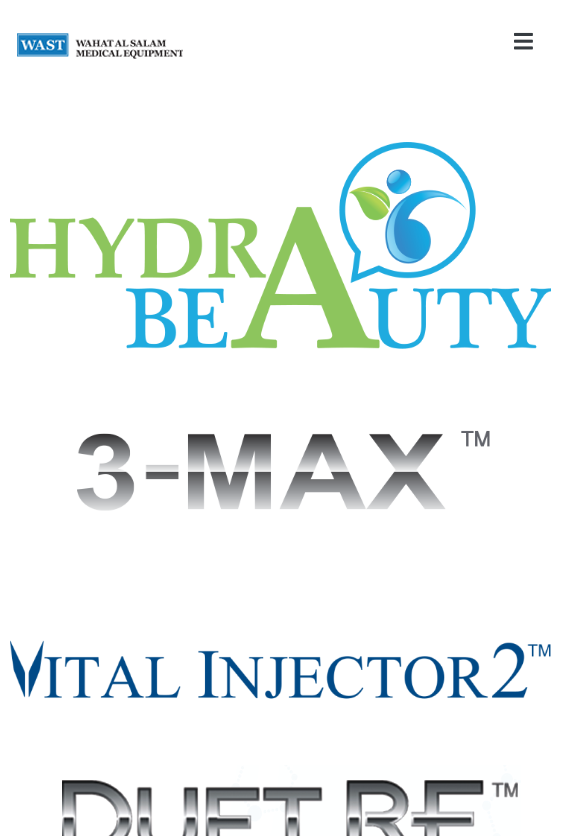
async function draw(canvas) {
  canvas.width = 561
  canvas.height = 836
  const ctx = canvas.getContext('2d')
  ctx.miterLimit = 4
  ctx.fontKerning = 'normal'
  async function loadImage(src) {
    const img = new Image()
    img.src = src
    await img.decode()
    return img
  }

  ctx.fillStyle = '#fff'
  ctx.fillRect(0, 0, 561, 836)
  ctx.drawImage(await loadImage('image0.png'), 17, 33, 166, 26)
  ctx.drawImage(await loadImage('image1.png'), 514, 32, 19, 18)
  ctx.drawImage(await loadImage('image2.png'), 10, 142, 541, 207)
  ctx.drawImage(await loadImage('image3.png'), 77, 430, 413, 81)
  ctx.drawImage(await loadImage('image4.png'), 10, 640, 541, 59)
  ctx.drawImage(await loadImage('image5.png'), 62, 765, 459, 71)
}

draw(document.querySelector('canvas'))
